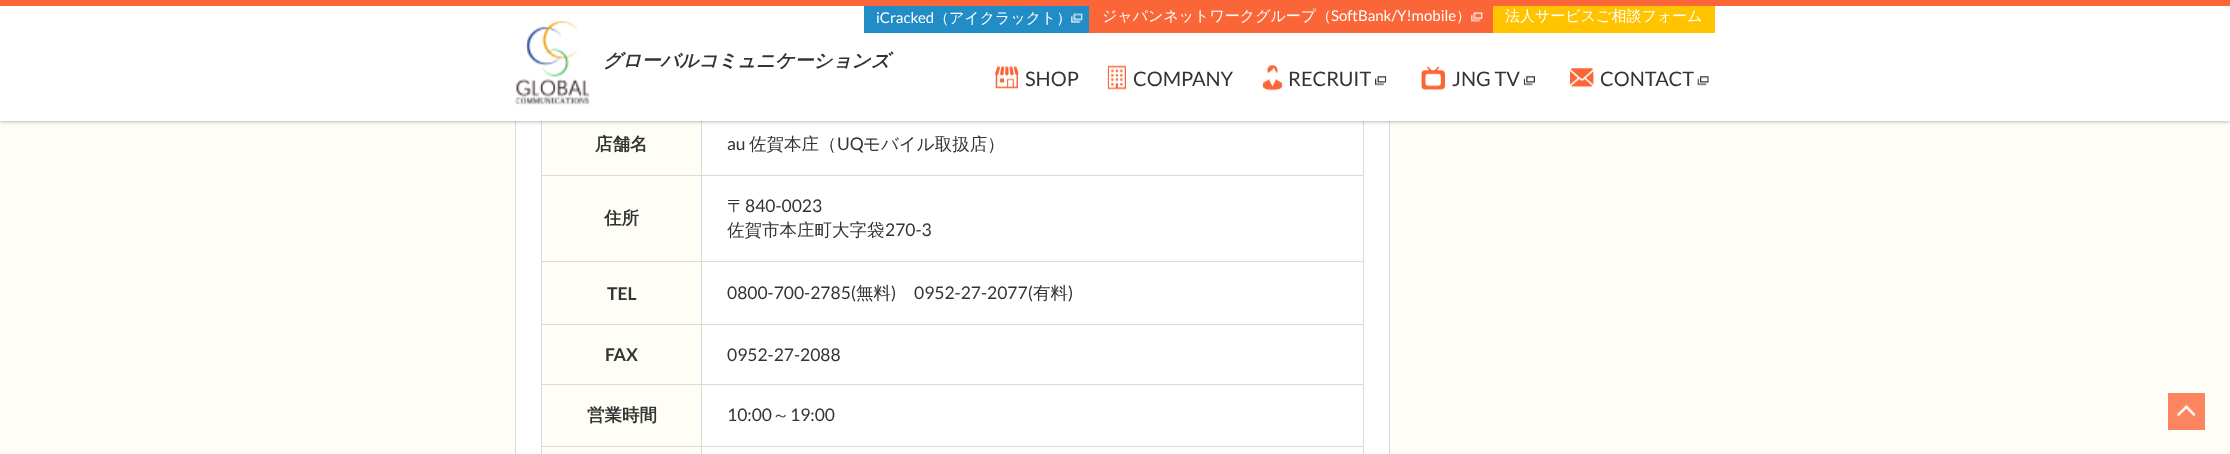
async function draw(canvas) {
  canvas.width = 2230
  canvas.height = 454
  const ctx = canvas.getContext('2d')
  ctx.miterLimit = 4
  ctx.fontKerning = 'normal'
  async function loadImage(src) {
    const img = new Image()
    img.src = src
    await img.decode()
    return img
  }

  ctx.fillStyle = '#fefdf6'
  ctx.fillRect(0, 0, 2230, 454)
  ctx.fillStyle = '#fff'
  ctx.fillRect(516, 121, 873, 333)
  ctx.strokeStyle = '#dadada'
  ctx.strokeRect(515.5, -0.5, 874, 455)
  ctx.fillStyle = '#dadada'
  ctx.fillRect(541, 113, 1, 341)
  ctx.fillRect(541, 446, 823, 1)
  ctx.fillRect(541, 175, 823, 1)
  ctx.fillRect(541, 261, 823, 1)
  ctx.fillRect(541, 324, 823, 1)
  ctx.fillRect(541, 384, 823, 1)
  ctx.fillRect(701, 113, 1, 341)
  ctx.fillStyle = '#fefdf6'
  ctx.fillRect(543, 121, 158, 54)
  ctx.fillStyle = '#dadada'
  ctx.fillRect(1363, 446, 1, 8)
  ctx.fillRect(1363, 384, 1, 64)
  ctx.fillRect(1363, 324, 1, 61)
  ctx.fillRect(1363, 261, 1, 64)
  ctx.fillRect(1363, 113, 1, 150)
  ctx.fillStyle = '#33333380'
  ctx.filter = 'blur(2px)'
  ctx.beginPath()
  ctx.rect(0, 0, 2230, 121)
  ctx.fill()
  ctx.filter = 'none'
  ctx.fillStyle = '#fff'
  ctx.fillRect(0, 6, 2230, 115)
  ctx.fillStyle = '#fb6638'
  ctx.fillRect(0, 0, 2230, 6)
  ctx.fillStyle = '#218cc5'
  ctx.fillRect(864, 6, 225, 27)
  ctx.font = '15px Lato'
  ctx.fillStyle = '#fff'
  ctx.fillText('iCracked', 876, 23)
  ctx.font = '500 15px WenQuanYi Zen Hei'
  ctx.fillText('（アイクラックト）', 934, 23)
  ctx.drawImage(await loadImage('image0.png'), 1071, 13, 12, 10)
  ctx.fillStyle = '#fb6638'
  ctx.fillRect(1089, 6, 404, 27)
  ctx.fillStyle = '#fff'
  ctx.fillText('ジャパンネットワークグループ（', 1102, 21)
  ctx.font = '15px Lato'
  ctx.fillText('SoftBank/Y!mobile', 1331, 21)
  ctx.font = '500 15px WenQuanYi Zen Hei'
  ctx.fillText('）', 1456, 21)
  ctx.drawImage(await loadImage('image1.png'), 1471, 12, 12, 10)
  ctx.fillStyle = '#ffc300'
  ctx.fillRect(1493, 6, 222, 27)
  ctx.fillStyle = '#fff'
  ctx.fillText('法人サービスご相談フォーム', 1505, 21)
  ctx.drawImage(await loadImage('image2.png'), 515, 21, 75, 84)
  ctx.font = 'italic bold 18.75px WenQuanYi Zen Hei'
  ctx.fillStyle = '#333'
  ctx.fillText('グローバルコミュニケーションズ', 603, 67)
  ctx.drawImage(await loadImage('image3.png'), 995, 66, 24, 23)
  ctx.font = '20px Lato'
  ctx.fillText('SHOP', 1025, 86)
  ctx.drawImage(await loadImage('image4.png'), 1107, 65, 19, 25)
  ctx.fillText('COMPANY', 1133, 86)
  ctx.drawImage(await loadImage('image5.png'), 1262, 65, 21, 26)
  ctx.fillText('RECRUIT', 1288, 86)
  ctx.drawImage(await loadImage('image6.png'), 1375, 76, 12, 10)
  ctx.drawImage(await loadImage('image7.png'), 1421, 66, 24, 25)
  ctx.fillText('JNG TV', 1452, 86)
  ctx.drawImage(await loadImage('image8.png'), 1523, 76, 12, 10)
  ctx.drawImage(await loadImage('image9.png'), 1570, 68, 24, 20)
  ctx.fillText('CONTACT', 1600, 86)
  ctx.drawImage(await loadImage('image10.png'), 1697, 76, 12, 10)
  ctx.fillStyle = '#fefdf6'
  ctx.fillRect(543, 447, 158, 7)
  ctx.font = 'bold 17.5px WenQuanYi Zen Hei'
  ctx.fillStyle = '#333'
  ctx.fillText('店舗名', 595, 150)
  ctx.font = '17.5px Lato'
  ctx.fillText('au', 727, 150)
  ctx.font = '500 17.5px WenQuanYi Zen Hei'
  ctx.fillText('佐賀本庄（', 749, 150)
  ctx.font = '17.5px Lato'
  ctx.fillText('UQ', 837, 150)
  ctx.font = '500 17.5px WenQuanYi Zen Hei'
  ctx.fillText('モバイル取扱店）', 863, 150)
  ctx.fillStyle = '#fefdf6'
  ctx.fillRect(543, 176, 158, 85)
  ctx.font = 'bold 17.5px WenQuanYi Zen Hei'
  ctx.fillStyle = '#333'
  ctx.fillText('住所', 604, 224)
  ctx.font = '500 17.5px WenQuanYi Zen Hei'
  ctx.fillText('〒', 727, 212)
  ctx.font = '17.5px Lato'
  ctx.fillText('840-0023', 745, 212)
  ctx.font = '500 17.5px WenQuanYi Zen Hei'
  ctx.fillText('佐賀市本庄町大字袋', 727, 236)
  ctx.font = '17.5px Lato'
  ctx.fillText('270-3', 885, 236)
  ctx.fillStyle = '#fefdf6'
  ctx.fillRect(543, 262, 158, 62)
  ctx.font = 'bold 17.5px Lato'
  ctx.fillStyle = '#333'
  ctx.fillText('TEL', 607, 300)
  ctx.font = '17.5px Lato'
  ctx.fillText('0800-700-2785(', 727, 299)
  ctx.font = '500 17.5px WenQuanYi Zen Hei'
  ctx.fillText('無料', 856, 299)
  ctx.font = '17.5px Lato'
  ctx.fillText(')', 891, 299)
  ctx.fillText('0952-27-2077(', 914, 299)
  ctx.font = '500 17.5px WenQuanYi Zen Hei'
  ctx.fillText('有料', 1033, 299)
  ctx.font = '17.5px Lato'
  ctx.fillText(')', 1068, 299)
  ctx.fillStyle = '#fefdf6'
  ctx.fillRect(543, 325, 158, 59)
  ctx.font = 'bold 17.5px Lato'
  ctx.fillStyle = '#333'
  ctx.fillText('FAX', 605, 361)
  ctx.font = '17.5px Lato'
  ctx.fillText('0952-27-2088', 727, 361)
  ctx.fillStyle = '#fefdf6'
  ctx.fillRect(543, 385, 158, 61)
  ctx.font = 'bold 17.5px WenQuanYi Zen Hei'
  ctx.fillStyle = '#333'
  ctx.fillText('営業時間', 587, 421)
  ctx.font = '17.5px Lato'
  ctx.fillText('10:00', 727, 421)
  ctx.font = '500 17.5px WenQuanYi Zen Hei'
  ctx.fillText('～', 772, 421)
  ctx.font = '17.5px Lato'
  ctx.fillText('19:00', 790, 421)
  ctx.fillStyle = '#fc845e'
  ctx.fillRect(2168, 393, 37, 37)
  ctx.drawImage(await loadImage('image11.png'), 2176, 404, 20, 13)
}

draw(document.querySelector('canvas'))
